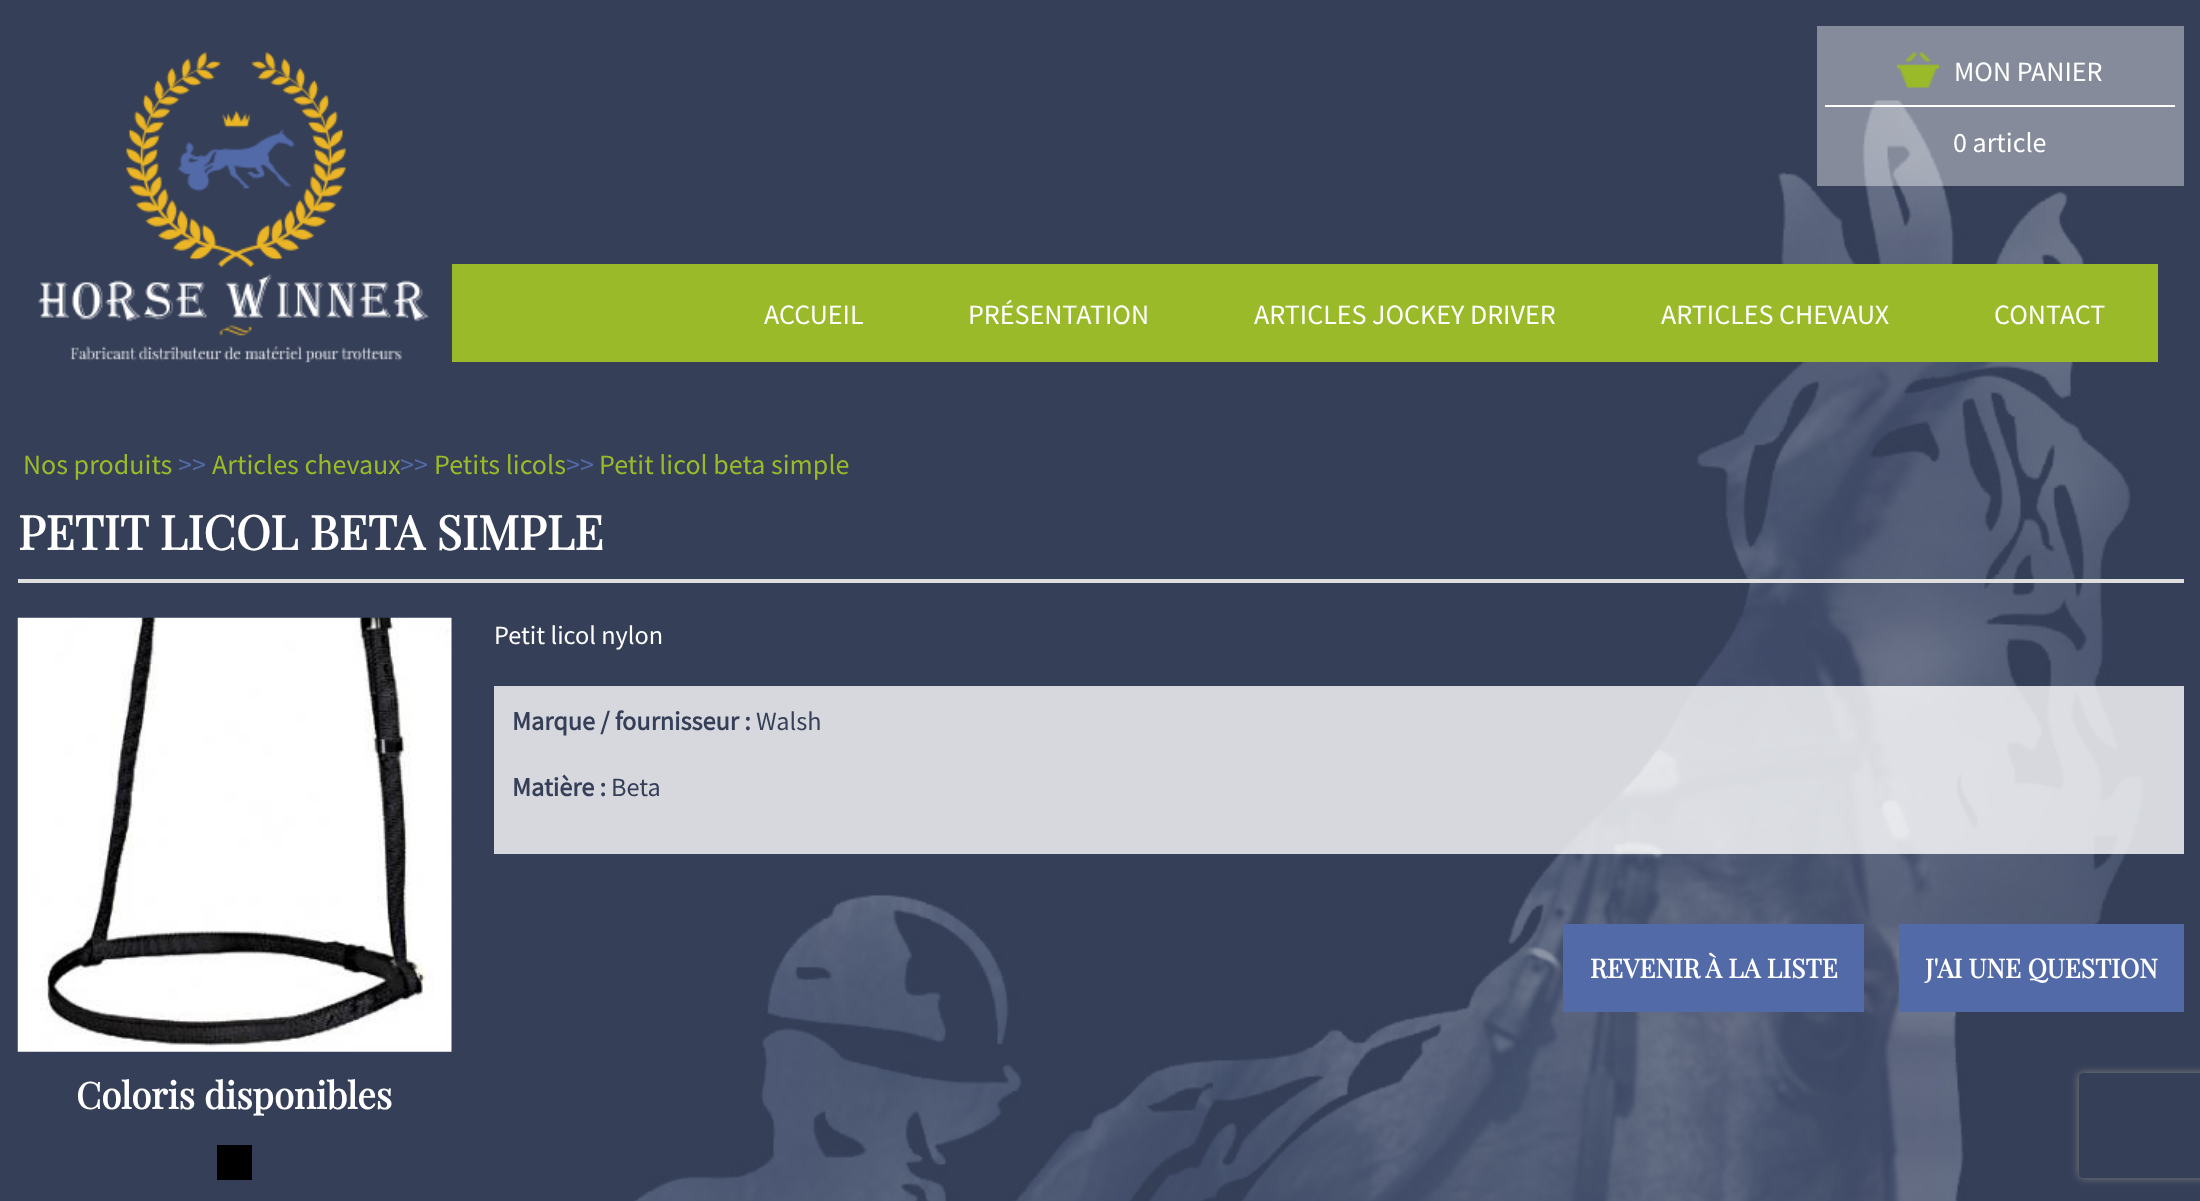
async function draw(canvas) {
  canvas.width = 2200
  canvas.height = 1201
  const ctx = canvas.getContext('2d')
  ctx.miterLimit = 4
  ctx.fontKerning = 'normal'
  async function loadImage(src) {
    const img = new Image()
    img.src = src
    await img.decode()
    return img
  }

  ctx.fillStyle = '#353f58'
  ctx.fillRect(0, 0, 2200, 1201)
  ctx.drawImage(await loadImage('image0.png'), 634, 100, 1509, 1101)
  ctx.drawImage(await loadImage('image1.png'), 38, 52, 391, 311)
  ctx.fillStyle = '#ffffff66'
  ctx.fillRect(1817, 26, 367, 160)
  ctx.fillStyle = '#fff'
  ctx.fillRect(1825, 105, 350, 2)
  ctx.drawImage(await loadImage('image2.png'), 1897, 52, 42, 36)
  ctx.font = '28px Source Sans Pro'
  ctx.fillText('MON PANIER', 1954, 81)
  ctx.fillText('0 article', 1953, 152)
  ctx.fillStyle = '#9aba29'
  ctx.fillRect(452, 264, 1706, 98)
  ctx.fillStyle = '#fff'
  ctx.fillText('ACCUEIL', 764, 324)
  ctx.fillText('PRÉSENTATION', 968, 324)
  ctx.fillText('ARTICLES JOCKEY DRIVER', 1254, 324)
  ctx.fillText('ARTICLES CHEVAUX', 1661, 324)
  ctx.fillText('CONTACT', 1994, 324)
  ctx.fillStyle = '#9aba29'
  ctx.fillText('Nos produits', 23, 474)
  ctx.fillStyle = '#526aa8'
  ctx.fillText('>>', 178, 474)
  ctx.fillStyle = '#9aba29'
  ctx.fillText('Articles chevaux', 212, 474)
  ctx.fillStyle = '#526aa8'
  ctx.fillText('>>', 400, 474)
  ctx.fillStyle = '#9aba29'
  ctx.fillText('Petits licols', 434, 474)
  ctx.fillStyle = '#526aa8'
  ctx.fillText('>>', 566, 474)
  ctx.fillStyle = '#9aba29'
  ctx.fillText('Petit licol beta simple', 599, 474)
  ctx.fillStyle = '#dedede'
  ctx.fillRect(18, 579, 2166, 4)
  ctx.font = 'bold 47.25px Playfair Display'
  ctx.fillStyle = '#fff'
  ctx.fillText('PETIT LICOL BETA SIMPLE', 18, 550)
  ctx.drawImage(await loadImage('image3.png'), 17, 617, 435, 435)
  ctx.font = '26.25px Source Sans Pro'
  ctx.fillText('Petit licol nylon', 494, 644)
  ctx.fillStyle = '#ffffffcc'
  ctx.fillRect(494, 686, 1690, 168)
  ctx.font = 'bold 26.25px Source Sans Pro'
  ctx.fillStyle = '#353f58'
  ctx.fillText('Marque / fournisseur :', 512, 730)
  ctx.font = '26.25px Source Sans Pro'
  ctx.fillText('Walsh', 756, 730)
  ctx.font = 'bold 26.25px Source Sans Pro'
  ctx.fillText('Matière :', 512, 796)
  ctx.font = '26.25px Source Sans Pro'
  ctx.fillText('Beta', 611, 796)
  ctx.fillStyle = '#526aa8'
  ctx.fillRect(1563, 924, 301, 88)
  ctx.font = 'bold 26.25px Playfair Display'
  ctx.fillStyle = '#fff'
  ctx.fillText('REVENIR À LA LISTE', 1590, 978)
  ctx.fillStyle = '#526aa8'
  ctx.fillRect(1899, 924, 285, 88)
  ctx.fillStyle = '#fff'
  ctx.fillText('J\'AI UNE QUESTION', 1925, 978)
  ctx.font = 'bold 36.75px Playfair Display'
  ctx.fillText('Coloris disponibles', 76, 1109)
  ctx.fillStyle = '#000'
  ctx.fillRect(217, 1145, 35, 35)
  ctx.save()
  ctx.beginPath()
  ctx.moveTo(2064, 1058)
  ctx.lineTo(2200, 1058)
  ctx.lineTo(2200, 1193)
  ctx.lineTo(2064, 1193)
  ctx.closePath()
  ctx.moveTo(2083, 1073)
  ctx.lineTo(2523, 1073)
  ctx.bezierCurveTo(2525, 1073, 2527, 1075, 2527, 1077)
  ctx.lineTo(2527, 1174)
  ctx.bezierCurveTo(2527, 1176, 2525, 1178, 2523, 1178)
  ctx.lineTo(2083, 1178)
  ctx.bezierCurveTo(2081, 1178, 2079, 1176, 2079, 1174)
  ctx.lineTo(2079, 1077)
  ctx.bezierCurveTo(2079, 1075, 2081, 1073, 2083, 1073)
  ctx.closePath()
  ctx.clip('evenodd')
  ctx.fillStyle = '#808080'
  ctx.filter = 'blur(4.5px)'
  ctx.beginPath()
  ctx.roundRect(2079, 1073, 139, 105, 4)
  ctx.fill()
  ctx.filter = 'none'
  ctx.restore()
}

draw(document.querySelector('canvas'))
